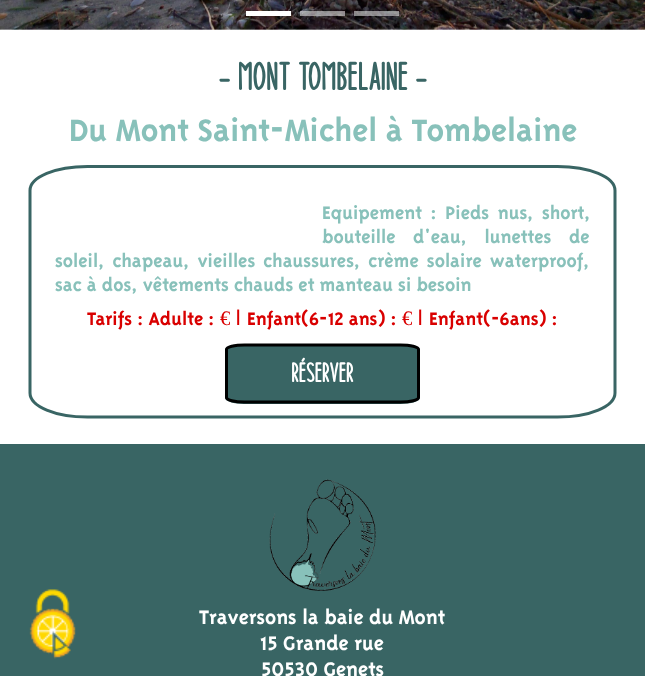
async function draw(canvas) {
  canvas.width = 645
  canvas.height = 676
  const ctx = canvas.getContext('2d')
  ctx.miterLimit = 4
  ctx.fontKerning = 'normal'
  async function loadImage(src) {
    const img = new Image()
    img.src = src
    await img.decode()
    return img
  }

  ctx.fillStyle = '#fff'
  ctx.fillRect(0, 0, 645, 676)
  ctx.drawImage(await loadImage('image0.png'), 0, 0, 645, 30)
  ctx.fillRect(246, 11, 45, 5)
  ctx.fillStyle = '#ffffff80'
  ctx.fillRect(300, 11, 45, 5)
  ctx.fillRect(354, 11, 45, 5)
  ctx.font = 'bold 38.75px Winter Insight'
  ctx.fillStyle = '#396564'
  ctx.fillText('- Mont Tombelaine -', 218, 90)
  ctx.font = 'bold 35.5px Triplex'
  ctx.fillStyle = '#88c1ba'
  ctx.fillText('Du Mont Saint-Michel à Tombelaine', 69, 141)
  ctx.beginPath()
  ctx.moveTo(87.5, 166.5)
  ctx.lineTo(557.5, 166.5)
  ctx.bezierCurveTo(589.5, 166.5, 615, 177, 615, 190.5)
  ctx.lineTo(615, 393)
  ctx.bezierCurveTo(615, 406.5, 589.5, 417, 557.5, 417)
  ctx.lineTo(87.5, 417)
  ctx.bezierCurveTo(55.5, 417, 30, 406.5, 30, 393)
  ctx.lineTo(30, 190.5)
  ctx.bezierCurveTo(30, 177, 55.5, 166.5, 87.5, 166.5)
  ctx.closePath()
  ctx.strokeStyle = '#396564'
  ctx.lineWidth = 3
  ctx.stroke()
  ctx.wordSpacing = '3.5px'
  ctx.font = 'bold 20.65px Triplex'
  ctx.fillText('Equipement : Pieds nus, short,', 322, 219)
  ctx.wordSpacing = '12.5px'
  ctx.fillText('bouteille d\'eau, lunettes de', 322, 243)
  ctx.wordSpacing = '3px'
  ctx.fillText('soleil, chapeau, vieilles chaussures, crème solaire waterproof,', 55, 267)
  ctx.wordSpacing = '0px'
  ctx.fillText('sac à dos, vêtements chauds et manteau si besoin', 55, 291)
  ctx.fillStyle = '#d90000'
  ctx.fillText('Tarifs : Adulte :', 87, 325)
  ctx.font = '20.65px Liberation Serif'
  ctx.fillText('€', 220, 325)
  ctx.font = 'bold 20.65px Triplex'
  ctx.fillText('| Enfant(6-12 ans) :', 235, 325)
  ctx.font = '20.65px Liberation Serif'
  ctx.fillText('€', 402, 325)
  ctx.font = 'bold 20.65px Triplex'
  ctx.fillText('| Enfant(-6ans) :', 417, 325)
  ctx.fillStyle = '#396564'
  ctx.beginPath()
  ctx.moveTo(244, 344)
  ctx.lineTo(400, 344)
  ctx.bezierCurveTo(411, 344, 420, 346, 420, 350)
  ctx.lineTo(420, 398)
  ctx.bezierCurveTo(420, 401, 411, 404, 400, 404)
  ctx.lineTo(244, 404)
  ctx.bezierCurveTo(234, 404, 225, 401, 225, 398)
  ctx.lineTo(225, 350)
  ctx.bezierCurveTo(225, 346, 234, 344, 244, 344)
  ctx.closePath()
  ctx.fill()
  ctx.beginPath()
  ctx.moveTo(244.5, 345)
  ctx.lineTo(400.5, 345)
  ctx.bezierCurveTo(410.5, 345, 418.5, 347, 418.5, 349.5)
  ctx.lineTo(418.5, 397.5)
  ctx.bezierCurveTo(418.5, 400, 410.5, 402, 400.5, 402)
  ctx.lineTo(244.5, 402)
  ctx.bezierCurveTo(234.5, 402, 226.5, 400, 226.5, 397.5)
  ctx.lineTo(226.5, 349.5)
  ctx.bezierCurveTo(226.5, 347, 234.5, 345, 244.5, 345)
  ctx.closePath()
  ctx.strokeStyle = '#000'
  ctx.stroke()
  ctx.font = 'bold 27px Winter Insight'
  ctx.fillStyle = '#fff'
  ctx.fillText('Réserver', 291, 382)
  ctx.fillStyle = '#396564'
  ctx.fillRect(0, 444, 645, 232)
  ctx.drawImage(await loadImage('image1.png'), 29, 589, 47, 70)
  ctx.drawImage(await loadImage('image2.png'), 269, 479, 107, 112)
  ctx.font = 'bold 22.5px Triplex'
  ctx.fillStyle = '#fff'
  ctx.fillText('Traversons la baie du Mont', 199, 624)
  ctx.fillText('15 Grande rue', 260, 650)
  ctx.fillText('50530 Genets', 261, 676)
}

draw(document.querySelector('canvas'))
